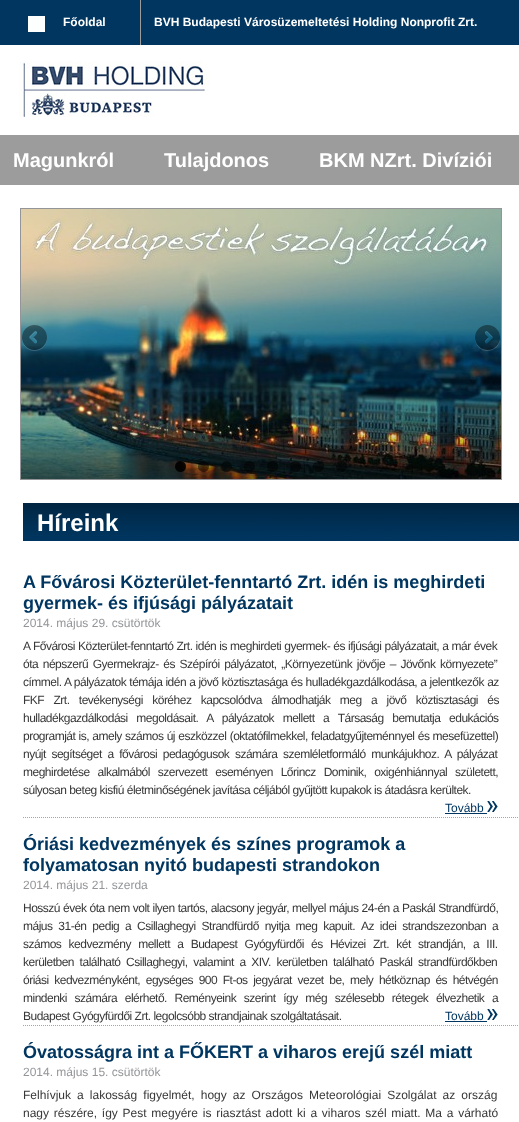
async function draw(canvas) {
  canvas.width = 519
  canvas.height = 1122
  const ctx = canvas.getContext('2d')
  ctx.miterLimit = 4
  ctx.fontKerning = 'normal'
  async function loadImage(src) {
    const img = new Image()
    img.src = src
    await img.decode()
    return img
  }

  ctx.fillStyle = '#fff'
  ctx.fillRect(0, 0, 519, 1122)
  ctx.fillStyle = '#003660'
  ctx.fillRect(0, 0, 519, 45)
  ctx.fillStyle = '#fdfefe'
  ctx.fillRect(28, 16, 17, 16)
  ctx.fillStyle = '#9c9c9c'
  ctx.fillRect(140, 0, 1, 45)
  ctx.font = 'bold 12px Liberation Sans'
  ctx.fillStyle = '#fff'
  ctx.fillText('Főoldal', 63, 26)
  ctx.fillText('BVH Budapesti Városüzemeltetési Holding Nonprofit Zrt.', 154, 26)
  ctx.drawImage(await loadImage('image0.png'), 19, 61, 191, 56)
  ctx.fillStyle = '#9c9c9c'
  ctx.fillRect(0, 135, 519, 50)
  ctx.font = 'bold 20px Liberation Sans'
  ctx.fillStyle = '#fff'
  ctx.fillText('Magunkról', 13, 167)
  ctx.fillText('Tulajdonos', 164, 167)
  ctx.fillText('BKM NZrt. Divíziói', 319, 167)
  ctx.strokeStyle = '#939598'
  ctx.strokeRect(20.5, 208.5, 481, 271)
  ctx.drawImage(await loadImage('image1.png'), 21, 209, 480, 270)
  ctx.drawImage(await loadImage('image2.png'), 22, 325, 25, 26)
  ctx.drawImage(await loadImage('image3.png'), 475, 325, 25, 26)
  ctx.fillStyle = '#000000e6'
  ctx.beginPath()
  ctx.arc(180.5, 466.5, 5.5, 0, 2 * Math.PI)
  ctx.fill()
  ctx.fillStyle = '#00000080'
  ctx.beginPath()
  ctx.arc(203.5, 466.5, 5.5, 0, 2 * Math.PI)
  ctx.fill()
  ctx.beginPath()
  ctx.arc(226.5, 466.5, 5.5, 0, 2 * Math.PI)
  ctx.fill()
  ctx.beginPath()
  ctx.arc(249.5, 466.5, 5.5, 0, 2 * Math.PI)
  ctx.fill()
  ctx.beginPath()
  ctx.arc(272.5, 466.5, 5.5, 0, 2 * Math.PI)
  ctx.fill()
  ctx.beginPath()
  ctx.arc(295.5, 466.5, 5.5, 0, 2 * Math.PI)
  ctx.fill()
  ctx.beginPath()
  ctx.arc(318.5, 466.5, 5.5, 0, 2 * Math.PI)
  ctx.fill()
  ctx.beginPath()
  ctx.arc(341.5, 466.5, 5.5, 0, 2 * Math.PI)
  ctx.fill()
  ctx.drawImage(await loadImage('image4.png'), 23, 503, 496, 38)
  ctx.font = 'bold 24px Liberation Sans'
  ctx.fillStyle = '#fff'
  ctx.fillText('Híreink', 37, 531)
  ctx.beginPath()
  ctx.moveTo(23, 817.5)
  ctx.lineTo(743, 817.5)
  ctx.strokeStyle = '#a5a5a5'
  ctx.setLineDash([1, 1])
  ctx.stroke()
  ctx.font = 'bold 18px Liberation Sans'
  ctx.fillStyle = '#003660'
  ctx.fillText('A Fővárosi Közterület-fenntartó Zrt. idén is meghirdeti', 23, 588)
  ctx.fillText('gyermek- és ifjúsági pályázatait', 23, 609)
  ctx.font = '12px Liberation Sans'
  ctx.fillStyle = '#939598'
  ctx.fillText('2014. május 29. csütörtök', 23, 627)
  ctx.letterSpacing = '-0.5px'
  ctx.wordSpacing = '0.25px'
  ctx.fillStyle = '#373737'
  ctx.fillText('A Fővárosi Közterület-fenntartó Zrt. idén is meghirdeti gyermek- és ifjúsági pályázatait, a már évek', 23, 650)
  ctx.wordSpacing = '1.75px'
  ctx.fillText('óta népszerű Gyermekrajz- és Szépírói pályázatot, „Környezetünk jövője – Jövőnk környezete”', 23, 668)
  ctx.wordSpacing = '0.25px'
  ctx.fillText('címmel. A pályázatok témája idén a jövő köztisztasága és hulladékgazdálkodása, a jelentkezők az', 23, 686)
  ctx.wordSpacing = '6.5px'
  ctx.fillText('FKF Zrt. tevékenységi köréhez kapcsolódva álmodhatják meg a jövő köztisztasági és', 23, 704)
  ctx.wordSpacing = '5.75px'
  ctx.fillText('hulladékgazdálkodási megoldásait. A pályázatok mellett a Társaság bemutatja edukációs', 23, 722)
  ctx.wordSpacing = '0.4px'
  ctx.fillText('programját is, amely számos új eszközzel (oktatófilmekkel, feladatgyűjteménnyel és mesefüzettel)', 23, 740)
  ctx.wordSpacing = '2.75px'
  ctx.fillText('nyújt segítséget a fővárosi pedagógusok számára szemléletformáló munkájukhoz. A pályázat', 23, 758)
  ctx.wordSpacing = '5px'
  ctx.fillText('meghirdetése alkalmából szervezett eseményen Lőrincz Dominik, oxigénhiánnyal született,', 23, 776)
  ctx.wordSpacing = '0px'
  ctx.fillText('súlyosan beteg kisfiú életminőségének javítása céljából gyűjtött kupakok is átadásra kerültek.', 23, 794)
  ctx.letterSpacing = '0px'
  ctx.fillStyle = '#003660'
  ctx.fillText('Tovább', 445, 812)
  ctx.fillRect(445, 813, 42, 1)
  ctx.drawImage(await loadImage('image5.png'), 487, 801, 11, 11)
  ctx.beginPath()
  ctx.moveTo(23, 1025.5)
  ctx.lineTo(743, 1025.5)
  ctx.stroke()
  ctx.font = 'bold 18px Liberation Sans'
  ctx.fillText('Óriási kedvezmények és színes programok a', 23, 850)
  ctx.fillText('folyamatosan nyitó budapesti strandokon', 23, 871)
  ctx.font = '12px Liberation Sans'
  ctx.fillStyle = '#939598'
  ctx.fillText('2014. május 21. szerda', 23, 889)
  ctx.letterSpacing = '-0.5px'
  ctx.wordSpacing = '0.25px'
  ctx.fillStyle = '#373737'
  ctx.fillText('Hosszú évek óta nem volt ilyen tartós, alacsony jegyár, mellyel május 24-én a Paskál Strandfürdő,', 23, 912)
  ctx.wordSpacing = '3px'
  ctx.fillText('május 31-én pedig a Csillaghegyi Strandfürdő nyitja meg kapuit.', 23, 930)
  ctx.fillText('Az idei strandszezonban a', 361, 930)
  ctx.wordSpacing = '4.4px'
  ctx.fillText('számos kedvezmény mellett a Budapest Gyógyfürdői és Hévizei Zrt. két strandján, a III.', 23, 948)
  ctx.wordSpacing = '2.75px'
  ctx.fillText('kerületben található Csillaghegyi, valamint a XIV. kerületben található Paskál strandfürdőkben', 23, 966)
  ctx.fillText('óriási kedvezményként, egységes 900 Ft-os jegyárat vezet be, mely hétköznap és hétvégén', 23, 984)
  ctx.wordSpacing = '4.75px'
  ctx.fillText('mindenki számára elérhető. Reményeink szerint így még szélesebb rétegek élvezhetik a', 23, 1002)
  ctx.wordSpacing = '0px'
  ctx.fillText('Budapest Gyógyfürdői Zrt. legolcsóbb strandjainak szolgáltatásait.', 23, 1020)
  ctx.letterSpacing = '0px'
  ctx.fillStyle = '#003660'
  ctx.fillText('Tovább', 445, 1020)
  ctx.fillRect(445, 1021, 42, 1)
  ctx.drawImage(await loadImage('image5.png'), 487, 1009, 11, 11)
  ctx.font = 'bold 18px Liberation Sans'
  ctx.fillText('Óvatosságra int a FŐKERT a viharos erejű szél miatt', 23, 1058)
  ctx.font = '12px Liberation Sans'
  ctx.fillStyle = '#939598'
  ctx.fillText('2014. május 15. csütörtök', 23, 1076)
  ctx.wordSpacing = '2.75px'
  ctx.fillStyle = '#373737'
  ctx.fillText('Felhívjuk a lakosság figyelmét, hogy az Országos Meteorológiai Szolgálat az ország', 23, 1099)
  ctx.wordSpacing = '1.4px'
  ctx.fillText('nagy részére, így Pest megyére is riasztást adott ki a viharos szél miatt. Ma a várható', 23, 1117)
}

draw(document.querySelector('canvas'))
